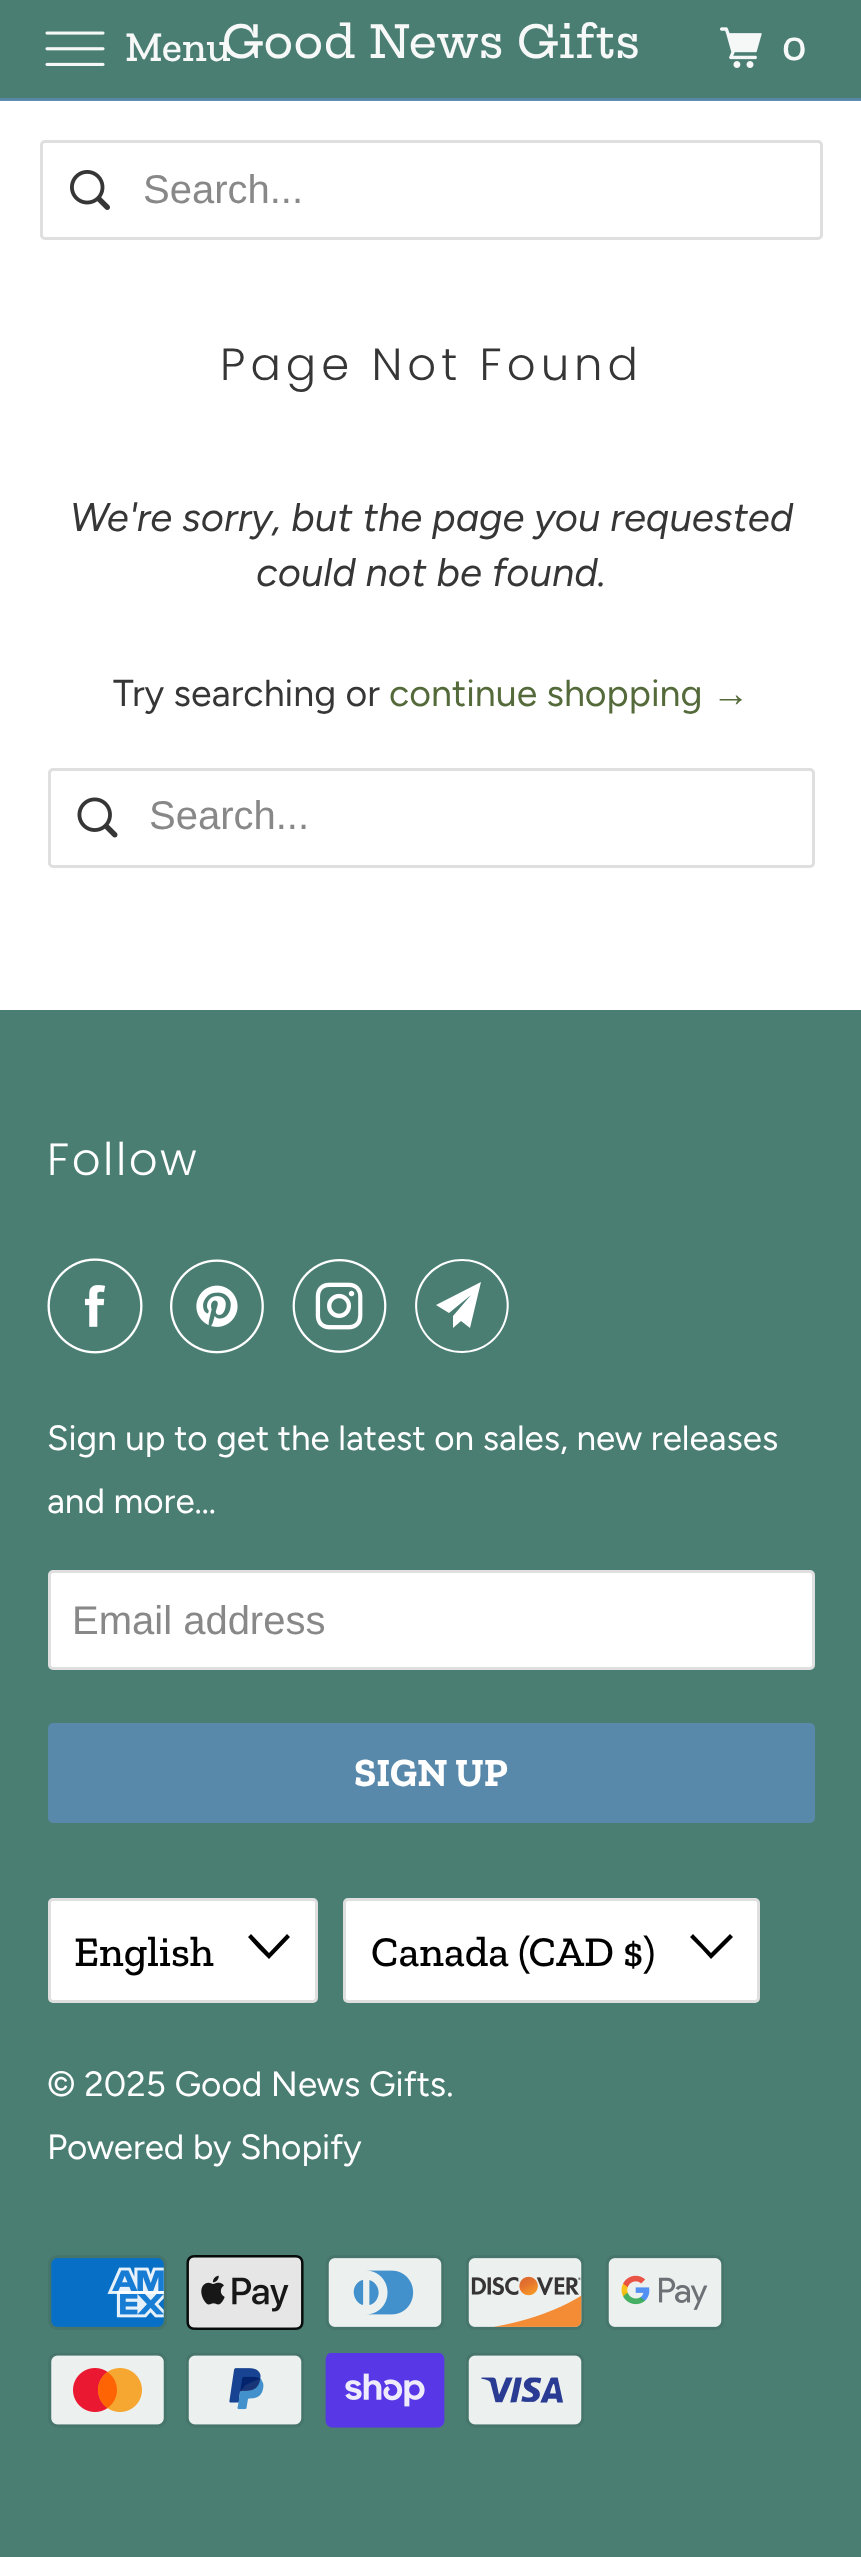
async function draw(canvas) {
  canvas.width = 861
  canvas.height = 2557
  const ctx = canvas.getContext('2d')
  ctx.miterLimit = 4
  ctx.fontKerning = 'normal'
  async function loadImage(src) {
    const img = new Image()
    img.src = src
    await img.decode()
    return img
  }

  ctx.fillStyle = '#4b7e73'
  ctx.fillRect(0, 0, 861, 2557)
  ctx.fillStyle = '#5788a7'
  ctx.fillRect(0, 98, 861, 2)
  ctx.drawImage(await loadImage('image0.png'), 45, 31, 60, 35)
  ctx.font = '500 45px Hepta Slab'
  ctx.fillStyle = '#f6f9f8'
  ctx.fillText('Good News Gifts', 222, 58)
  ctx.font = '500 42.5px Zilla Slab'
  ctx.fillText('Menu', 125, 61)
  ctx.drawImage(await loadImage('image1.png'), 720, 27, 42, 41)
  ctx.fillText('0', 782, 60)
  ctx.fillStyle = '#fff'
  ctx.fillRect(0, 101, 861, 909)
  ctx.fillStyle = '#608eae'
  ctx.fillRect(0, 100, 861, 1)
  ctx.beginPath()
  ctx.roundRect(41.5, 141.5, 780, 97, 3.5)
  ctx.strokeStyle = '#dfdfdf'
  ctx.lineWidth = 3
  ctx.stroke()
  ctx.drawImage(await loadImage('image2.png'), 70, 170, 40, 40)
  ctx.font = '40px Liberation Sans'
  ctx.fillStyle = '#888'
  ctx.fillText('Search...', 143, 203)
  ctx.letterSpacing = '5px'
  ctx.font = '300 45px Poppins'
  ctx.fillStyle = '#363636'
  ctx.fillText('Page Not Found', 220, 380)
  ctx.letterSpacing = '0px'
  ctx.font = 'italic 40px Figtree'
  ctx.fillText('We\'re sorry, but the page you requested', 70, 531)
  ctx.fillText('could not be found.', 256, 586)
  ctx.font = '37.5px Figtree'
  ctx.fillText('Try searching or', 113, 706)
  ctx.fillStyle = '#546a3a'
  ctx.fillText('continue shopping', 389, 706)
  ctx.font = '37.5px Liberation Sans'
  ctx.fillText('→', 712, 706)
  ctx.beginPath()
  ctx.roundRect(49.5, 769.5, 764, 97, 3.5)
  ctx.stroke()
  ctx.drawImage(await loadImage('image3.png'), 77, 797, 41, 41)
  ctx.font = '40px Liberation Sans'
  ctx.fillStyle = '#888'
  ctx.fillText('Search...', 149, 829)
  ctx.letterSpacing = '2.5px'
  ctx.font = '300 45px Poppins'
  ctx.fillStyle = '#fff'
  ctx.fillText('Follow', 47, 1175)
  ctx.drawImage(await loadImage('image4.png'), 47, 1258, 96, 96)
  ctx.drawImage(await loadImage('image5.png'), 170, 1259, 94, 95)
  ctx.drawImage(await loadImage('image6.png'), 292, 1259, 95, 94)
  ctx.beginPath()
  ctx.moveTo(470, 1328)
  ctx.lineTo(461, 1321)
  ctx.lineTo(453, 1328)
  ctx.lineTo(453, 1316)
  ctx.lineTo(471, 1295)
  ctx.lineTo(449, 1313)
  ctx.lineTo(436, 1305)
  ctx.lineTo(481, 1282)
  ctx.closePath()
  ctx.moveTo(462, 1261)
  ctx.bezierCurveTo(452, 1261, 443, 1264, 435, 1270)
  ctx.bezierCurveTo(401, 1296, 419, 1351, 462, 1351)
  ctx.bezierCurveTo(505, 1351, 523, 1296, 489, 1270)
  ctx.bezierCurveTo(481, 1264, 472, 1261, 462, 1261)
  ctx.closePath()
  ctx.moveTo(462, 1353)
  ctx.bezierCurveTo(417, 1353, 398, 1295, 434, 1268)
  ctx.bezierCurveTo(442, 1262, 452, 1259, 462, 1259)
  ctx.bezierCurveTo(472, 1259, 482, 1262, 490, 1268)
  ctx.bezierCurveTo(526, 1295, 507, 1353, 462, 1353)
  ctx.closePath()
  ctx.fill()
  ctx.letterSpacing = '0px'
  ctx.font = '35px Figtree'
  ctx.fillText('Sign up to get the latest on sales, new releases', 47, 1450)
  ctx.fillText('and more…', 47, 1513)
  ctx.beginPath()
  ctx.roundRect(49.5, 1571.5, 764, 97, 3.5)
  ctx.fill()
  ctx.stroke()
  ctx.font = '40px Liberation Sans'
  ctx.fillStyle = '#888'
  ctx.fillText('Email address', 72, 1634)
  ctx.fillStyle = '#5888aa'
  ctx.beginPath()
  ctx.roundRect(48, 1723, 767, 100, 5)
  ctx.fill()
  ctx.font = 'bold 40px Zilla Slab'
  ctx.fillStyle = '#fff'
  ctx.fillText('SIGN UP', 354, 1786)
  ctx.beginPath()
  ctx.roundRect(49.5, 1899.5, 267, 102, 3.5)
  ctx.fill()
  ctx.stroke()
  ctx.font = '500 42.5px Zilla Slab'
  ctx.fillStyle = '#000'
  ctx.fillText('English', 74, 1966)
  ctx.beginPath()
  ctx.moveTo(258, 1948)
  ctx.lineTo(248, 1937)
  ctx.lineTo(251, 1934)
  ctx.lineTo(269, 1953)
  ctx.lineTo(287, 1934)
  ctx.lineTo(290, 1937)
  ctx.lineTo(269, 1959)
  ctx.closePath()
  ctx.fill()
  ctx.fillStyle = '#fff'
  ctx.beginPath()
  ctx.roundRect(344.5, 1899.5, 414, 102, 3.5)
  ctx.fill()
  ctx.stroke()
  ctx.fillStyle = '#000'
  ctx.fillText('Canada (CAD $)', 371, 1966)
  ctx.beginPath()
  ctx.moveTo(701, 1948)
  ctx.lineTo(690, 1937)
  ctx.lineTo(693, 1934)
  ctx.lineTo(711, 1953)
  ctx.lineTo(730, 1934)
  ctx.lineTo(733, 1937)
  ctx.lineTo(711, 1959)
  ctx.closePath()
  ctx.fill()
  ctx.font = '35px Figtree'
  ctx.fillStyle = '#fff'
  ctx.fillText('© 2025 Good News Gifts.', 47, 2096)
  ctx.fillText('Powered by Shopify', 47, 2159)
  ctx.drawImage(await loadImage('image7.png'), 48, 2255, 119, 75)
  ctx.drawImage(await loadImage('image8.png'), 186, 2255, 118, 75)
  ctx.drawImage(await loadImage('image9.png'), 326, 2255, 118, 75)
  ctx.drawImage(await loadImage('image10.png'), 466, 2255, 118, 75)
  ctx.drawImage(await loadImage('image11.png'), 606, 2255, 118, 75)
  ctx.drawImage(await loadImage('image12.png'), 48, 2353, 119, 75)
  ctx.drawImage(await loadImage('image13.png'), 186, 2353, 118, 75)
  ctx.drawImage(await loadImage('image14.png'), 325, 2353, 120, 75)
  ctx.drawImage(await loadImage('image15.png'), 466, 2353, 118, 75)
}

draw(document.querySelector('canvas'))
